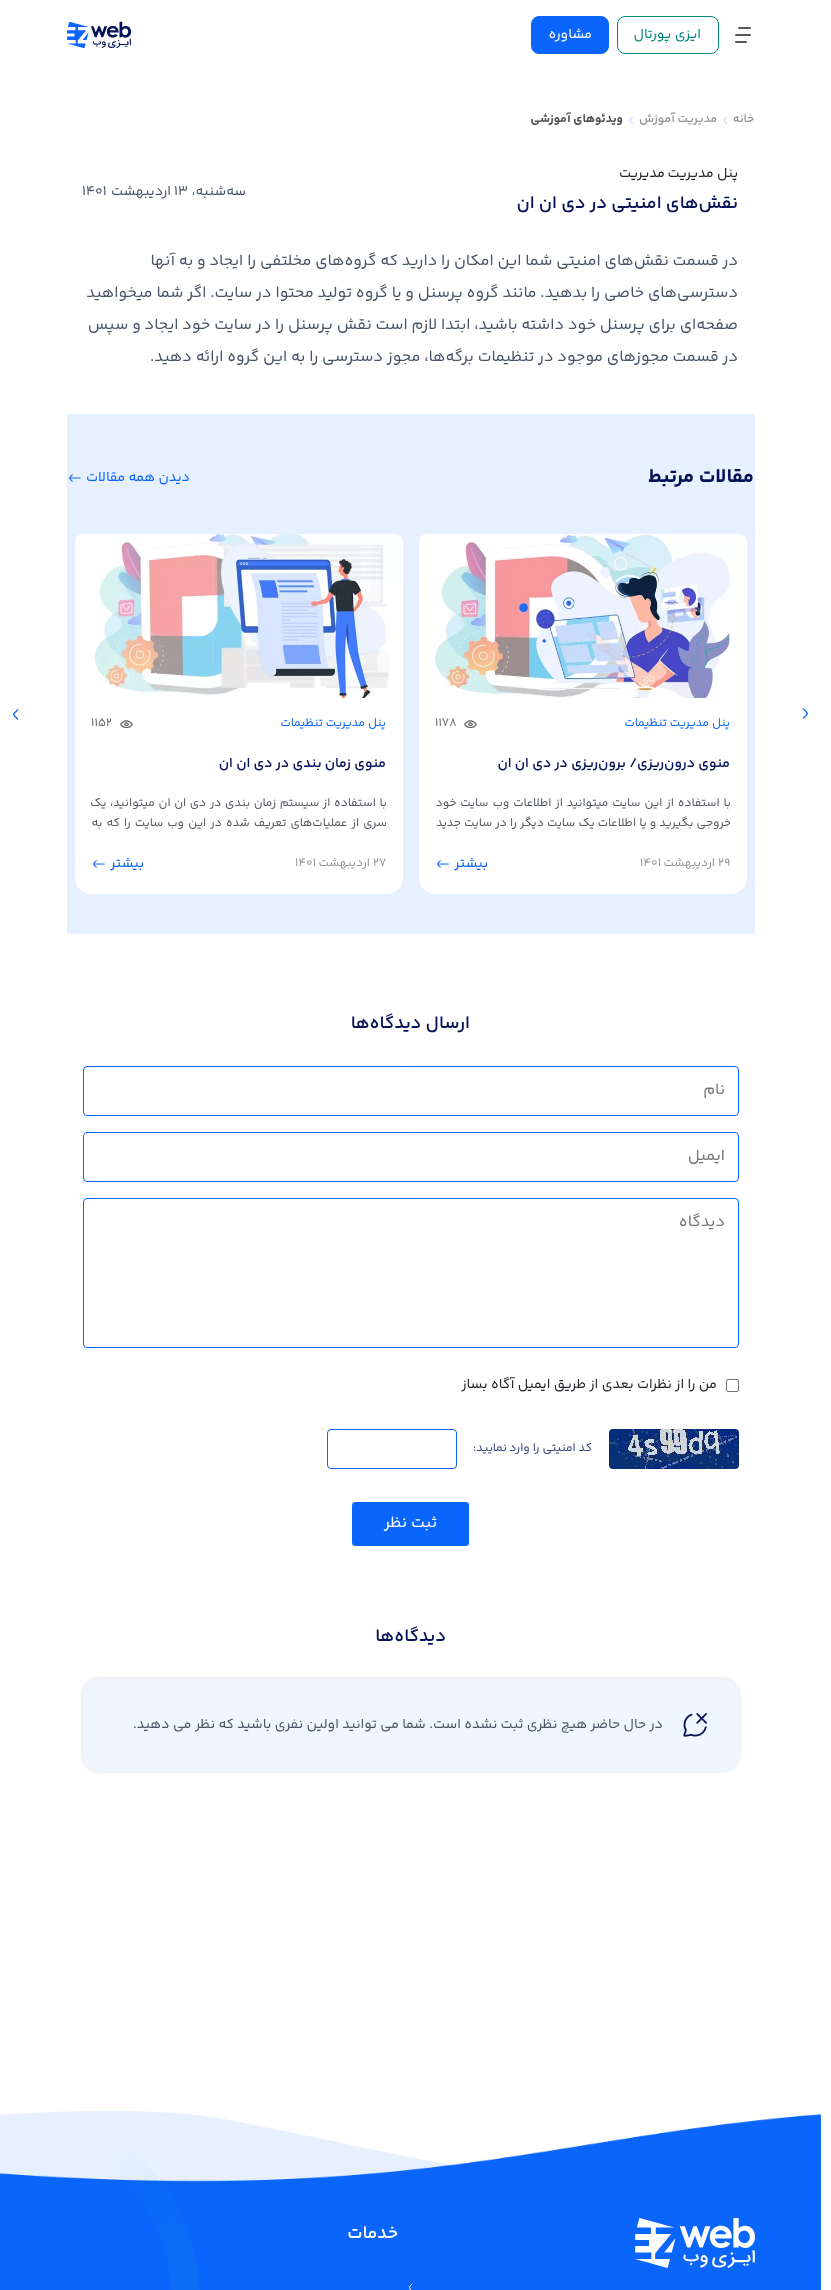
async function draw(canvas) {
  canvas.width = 831
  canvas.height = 2290
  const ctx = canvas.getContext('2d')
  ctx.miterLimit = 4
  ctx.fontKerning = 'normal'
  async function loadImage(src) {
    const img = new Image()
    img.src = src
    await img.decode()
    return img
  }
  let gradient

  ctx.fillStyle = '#fff'
  ctx.fillRect(0, 0, 831, 2290)
  ctx.fillStyle = '#545960'
  ctx.beginPath()
  ctx.roundRect(738, 27, 13, 2, 1)
  ctx.fill()
  ctx.beginPath()
  ctx.roundRect(735, 34, 16, 2, 1)
  ctx.fill()
  ctx.beginPath()
  ctx.roundRect(735, 41, 12, 2, 1)
  ctx.fill()
  ctx.beginPath()
  ctx.roundRect(617.5, 16.5, 101, 37, 7.5)
  ctx.strokeStyle = '#008a7a'
  ctx.stroke()
  ctx.direction = 'rtl'
  ctx.font = '14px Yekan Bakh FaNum'
  ctx.fillStyle = '#008a7a'
  ctx.fillText('ایزی پورتال', 701, 38)
  ctx.fillStyle = '#0a65fc'
  ctx.beginPath()
  ctx.roundRect(531.5, 16.5, 77, 37, 7.5)
  ctx.fill()
  ctx.strokeStyle = '#0a65fc'
  ctx.stroke()
  ctx.fillStyle = '#fff'
  ctx.fillText('مشاوره', 592, 38)
  ctx.drawImage(await loadImage('image0.png'), 67, 21, 64, 28)
  ctx.font = '600 12px Yekan Bakh FaNum'
  ctx.fillStyle = '#959595'
  ctx.fillText('خانه', 754, 122)
  ctx.beginPath()
  ctx.moveTo(726.5, 123.5)
  ctx.bezierCurveTo(723, 120, 723, 120.5, 726.5, 117)
  ctx.strokeStyle = '#9dc1fe'
  ctx.lineCap = 'round'
  ctx.stroke()
  ctx.fillText('مدیریت آموزش', 717, 122)
  ctx.beginPath()
  ctx.moveTo(632.5, 123.5)
  ctx.bezierCurveTo(629, 120, 629, 120.5, 632.5, 117)
  ctx.stroke()
  ctx.font = 'bold 12px Yekan Bakh FaNum'
  ctx.fillStyle = '#4f4f4f'
  ctx.fillText('ویدئوهای آموزشی', 623, 122)
  ctx.font = '14px Yekan Bakh FaNum'
  ctx.fillStyle = '#212529'
  ctx.fillText('پنل مدیریت', 738, 177)
  ctx.fillText('مدیریت', 665, 177)
  ctx.font = '600 18px Yekan Bakh FaNum'
  ctx.fillStyle = '#061257'
  ctx.fillText('نقش‌های امنیتی در دی ان ان', 738, 208)
  ctx.font = '14px Yekan Bakh FaNum'
  ctx.fillStyle = '#495566'
  ctx.fillText('ﺳﻪشنبه،', 246, 195)
  ctx.direction = 'ltr'
  ctx.fillText('13', 174, 195)
  ctx.direction = 'rtl'
  ctx.fillText('اردیبهشت', 171, 195)
  ctx.direction = 'ltr'
  ctx.fillText('1401', 82, 195)
  ctx.direction = 'rtl'
  ctx.font = '16px Yekan Bakh FaNum'
  ctx.fillText('در قسمت نقش‌های امنیتی شما این امکان را دارید که گروه‌های مخلتفی را ایجاد و به آنها', 738, 265)
  ctx.fillText('دسترسی‌های خاصی را بدهید. مانند گروه پرسنل و یا گروه تولید محتوا در سایت. اگر شما میخواهید', 738, 297)
  ctx.fillText('صفحه‌ای برای پرسنل خود داشته باشید، ابتدا لازم است نقش پرسنل را در سایت خود ایجاد و سپس', 738, 329)
  ctx.fillText('در قسمت مجوزهای موجود در تنظیمات برگه‌ها، مجوز دسترسی را به این گروه ارائه دهید.', 738, 361)
  ctx.fillStyle = '#e7f0ff'
  ctx.fillRect(67, 414, 688, 520)
  ctx.font = 'bold 20px Yekan Bakh FaNum'
  ctx.fillStyle = '#061257'
  ctx.fillText('مقالات مرتبط', 754, 482)
  ctx.font = '14px Yekan Bakh FaNum'
  ctx.fillStyle = '#0a65fc'
  ctx.fillText('دیدن همه مقالات', 190, 481)
  ctx.drawImage(await loadImage('image1.png'), 69, 474, 12, 8)
  ctx.beginPath()
  ctx.moveTo(803.5, 709)
  ctx.bezierCurveTo(808.5, 713.5, 808.5, 713.5, 803.5, 718)
  ctx.strokeStyle = '#0a65fc'
  ctx.lineWidth = 1.4
  ctx.stroke()
  ctx.beginPath()
  ctx.moveTo(17.5, 719)
  ctx.bezierCurveTo(12.5, 714.5, 12.5, 714.5, 17.5, 710)
  ctx.stroke()
  ctx.fillStyle = '#fff'
  ctx.beginPath()
  ctx.roundRect(419, 534, 328, 360, 16)
  ctx.fill()
  ctx.drawImage(await loadImage('image2.png'), 419, 534, 328, 164)
  ctx.font = '12px Yekan Bakh FaNum'
  ctx.fillStyle = '#0a65fc'
  ctx.fillText('پنل مدیریت', 730, 726)
  ctx.fillText('تنظیمات', 667, 726)
  ctx.drawImage(await loadImage('image3.png'), 464, 720, 13, 8)
  ctx.direction = 'ltr'
  ctx.fillStyle = '#626262'
  ctx.fillText('1178', 435, 726)
  ctx.direction = 'rtl'
  ctx.font = '600 14px Yekan Bakh FaNum'
  ctx.fillStyle = '#061257'
  ctx.fillText('منوی درون‌ریزی/ برون‌ریزی در دی ان ان', 730, 767)
  ctx.wordSpacing = '1px'
  ctx.font = '12px Yekan Bakh FaNum'
  ctx.fillStyle = '#545960'
  ctx.fillText('با استفاده از این سایت میتوانید از اطلاعات وب سایت خود', 731, 806)
  ctx.wordSpacing = '0.25px'
  ctx.fillText('خروجی بگیرید و یا اطلاعات یک سایت دیگر را در سایت جدید', 731, 826)
  ctx.wordSpacing = '0px'
  ctx.direction = 'ltr'
  ctx.fillStyle = '#959595'
  ctx.fillText('29', 718, 866)
  ctx.direction = 'rtl'
  ctx.fillText('اردیبهشت', 715, 866)
  ctx.direction = 'ltr'
  ctx.fillText('1401', 640, 866)
  ctx.direction = 'rtl'
  ctx.font = '14px Yekan Bakh FaNum'
  ctx.fillStyle = '#0a65fc'
  ctx.fillText('بیشتر', 488, 867)
  ctx.drawImage(await loadImage('image4.png'), 437, 860, 12, 8)
  ctx.fillStyle = '#fff'
  ctx.beginPath()
  ctx.roundRect(75, 534, 328, 360, 16)
  ctx.fill()
  ctx.drawImage(await loadImage('image5.png'), 75, 534, 328, 164)
  ctx.font = '12px Yekan Bakh FaNum'
  ctx.fillStyle = '#0a65fc'
  ctx.fillText('پنل مدیریت', 386, 726)
  ctx.fillText('تنظیمات', 323, 726)
  ctx.drawImage(await loadImage('image3.png'), 120, 720, 13, 8)
  ctx.direction = 'ltr'
  ctx.fillStyle = '#626262'
  ctx.fillText('1152', 91, 726)
  ctx.direction = 'rtl'
  ctx.font = '600 14px Yekan Bakh FaNum'
  ctx.fillStyle = '#061257'
  ctx.fillText('منوی زمان بندی در دی ان ان', 386, 767)
  ctx.wordSpacing = '0.75px'
  ctx.font = '12px Yekan Bakh FaNum'
  ctx.fillStyle = '#545960'
  ctx.fillText('با استفاده از سیستم زمان بندی در دی ان ان میتوانید، یک', 387, 806)
  ctx.wordSpacing = '1.25px'
  ctx.fillText('سری از عملیات‌های تعریف شده در این وب سایت را که به', 387, 826)
  ctx.wordSpacing = '0px'
  ctx.direction = 'ltr'
  ctx.fillStyle = '#959595'
  ctx.fillText('27', 373, 866)
  ctx.direction = 'rtl'
  ctx.fillText('اردیبهشت', 370, 866)
  ctx.direction = 'ltr'
  ctx.fillText('1401', 295, 866)
  ctx.direction = 'rtl'
  ctx.font = '14px Yekan Bakh FaNum'
  ctx.fillStyle = '#0a65fc'
  ctx.fillText('بیشتر', 144, 867)
  ctx.drawImage(await loadImage('image4.png'), 93, 860, 12, 8)
  ctx.font = '600 18px Yekan Bakh FaNum'
  ctx.fillStyle = '#061257'
  ctx.fillText('ارسال دیدگاه‌ها‌', 470, 1028)
  ctx.beginPath()
  ctx.roundRect(83.5, 1066.5, 655, 49, 3.5)
  ctx.lineWidth = 1
  ctx.stroke()
  ctx.font = '16px Yekan Bakh FaNum'
  ctx.fillStyle = '#757575'
  ctx.fillText('نام', 725, 1094)
  ctx.beginPath()
  ctx.roundRect(83.5, 1132.5, 655, 49, 3.5)
  ctx.stroke()
  ctx.fillText('ایمیل', 725, 1160)
  ctx.beginPath()
  ctx.roundRect(83.5, 1198.5, 655, 149, 3.5)
  ctx.stroke()
  ctx.fillText('دیدگاه', 725, 1226)
  ctx.beginPath()
  ctx.roundRect(726.5, 1379.5, 12, 12, 1.5)
  ctx.strokeStyle = '#767676'
  ctx.stroke()
  ctx.font = '14px Yekan Bakh FaNum'
  ctx.fillStyle = '#212529'
  ctx.fillText('من را از نظرات بعدی از طریق ایمیل آگاه بساز', 717, 1388)
  ctx.drawImage(await loadImage('image6.png'), 609, 1429, 130, 40)
  ctx.font = '12px Yekan Bakh FaNum'
  ctx.fillStyle = '#384179'
  ctx.fillText('کد امنیتی را وارد', 592, 1451)
  ctx.fillText('نمایید:', 507, 1451)
  ctx.beginPath()
  ctx.roundRect(327.5, 1429.5, 129, 39, 3.5)
  ctx.strokeStyle = '#0a65fc'
  ctx.stroke()
  ctx.fillStyle = '#0a65fc'
  ctx.beginPath()
  ctx.roundRect(351.5, 1501.5, 118, 45, 3.5)
  ctx.fill()
  ctx.strokeStyle = '#fff'
  ctx.stroke()
  ctx.font = '16px Yekan Bakh FaNum'
  ctx.fillStyle = '#fff'
  ctx.fillText('ثبت نظر', 437, 1527)
  ctx.font = '600 18px Yekan Bakh FaNum'
  ctx.fillStyle = '#061257'
  ctx.fillText('دیدگاه‌ها‌', 446, 1641)
  ctx.fillStyle = '#12121229'
  ctx.filter = 'blur(2px)'
  ctx.beginPath()
  ctx.roundRect(83, 1679, 656, 92, 16)
  ctx.fill()
  ctx.filter = 'none'
  ctx.fillStyle = '#f0f6ff'
  ctx.beginPath()
  ctx.roundRect(83, 1679, 656, 92, 16)
  ctx.fill()
  ctx.drawImage(await loadImage('image7.png'), 683, 1713, 24, 24)
  ctx.font = '14px Yekan Bakh FaNum'
  ctx.fillStyle = '#495566'
  ctx.fillText('در حال حاضر هیچ نظری ثبت نشده است. شما می توانید اولین نفری باشید که', 663, 1728)
  ctx.fillText('نظر می دهید.', 215, 1728)
  ctx.drawImage(await loadImage('image8.png'), 0, 2110, 821, 180)
  ctx.drawImage(await loadImage('image9.png'), 635, 2218, 120, 50)
  ctx.font = '600 18px Yekan Bakh FaNum'
  ctx.fillStyle = '#fff'
  ctx.fillText('خدمات', 398, 2238)
  ctx.beginPath()
  ctx.moveTo(412, 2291)
  ctx.bezierCurveTo(408.5, 2287.5, 408.5, 2287.5, 412, 2284)
  ctx.stroke()
  ctx.beginPath()
  ctx.moveTo(-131, 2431.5)
  ctx.bezierCurveTo(-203.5, 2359, -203.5, 2241.5, -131, 2169)
  ctx.bezierCurveTo(-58.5, 2096.5, 59, 2096.5, 131.5, 2169)
  ctx.bezierCurveTo(204, 2241.5, 204, 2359, 131.5, 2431.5)
  ctx.bezierCurveTo(59, 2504, -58.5, 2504, -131, 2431.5)
  ctx.closePath()
  gradient = ctx.createLinearGradient(141, 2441, -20, 2280)
  gradient.addColorStop(0, '#0bb7a326')
  gradient.addColorStop(1, '#0bb7a300')
  ctx.strokeStyle = gradient
  ctx.lineWidth = 28
  ctx.lineCap = 'butt'
  ctx.stroke()
}

draw(document.querySelector('canvas'))
